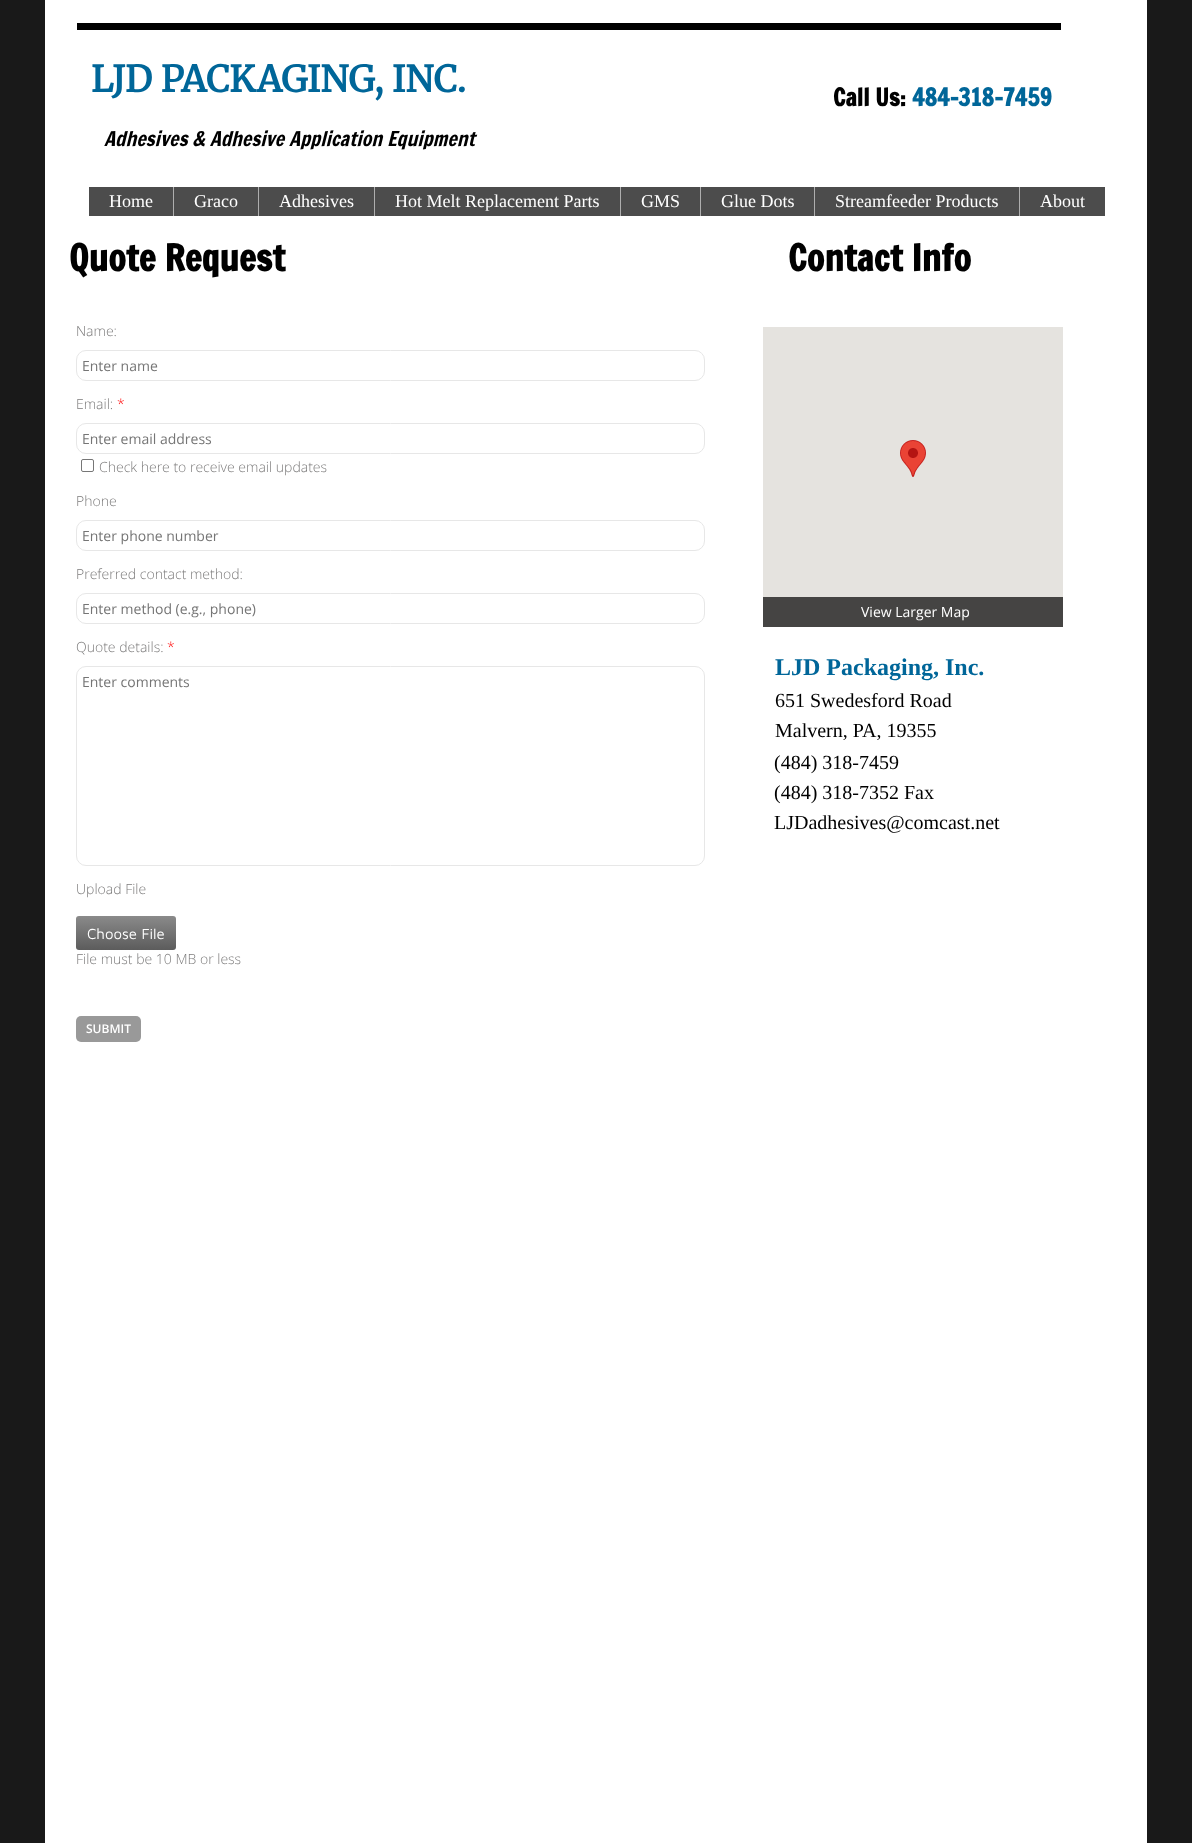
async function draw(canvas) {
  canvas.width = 1192
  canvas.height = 1843
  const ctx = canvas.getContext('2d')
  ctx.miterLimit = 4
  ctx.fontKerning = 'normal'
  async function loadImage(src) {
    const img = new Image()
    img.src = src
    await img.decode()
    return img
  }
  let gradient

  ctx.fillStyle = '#191919'
  ctx.fillRect(0, 0, 1192, 1843)
  ctx.fillStyle = '#fff'
  ctx.fillRect(45, 0, 1102, 1843)
  ctx.fillStyle = '#000'
  ctx.fillRect(77, 23, 984, 7)
  ctx.font = 'bold 36px Merriweather'
  ctx.fillStyle = '#069'
  ctx.fillText('LJD PACKAGING, INC.', 91, 92)
  ctx.font = 'bold 24px Francois One'
  ctx.fillStyle = '#000'
  ctx.fillText('Call Us:', 833, 106)
  ctx.fillStyle = '#069'
  ctx.fillText('484-318-7459', 912, 106)
  ctx.font = 'italic 20px Francois One'
  ctx.fillStyle = '#000'
  ctx.fillText('Adhesives & Adhesive Application Equipment', 104, 146)
  ctx.fillStyle = '#4c4c4c'
  ctx.fillRect(89, 187, 84, 29)
  ctx.fillStyle = '#aeaeae'
  ctx.fillRect(173, 187, 1, 29)
  ctx.font = '18px Liberation Serif'
  ctx.fillStyle = '#fff'
  ctx.fillText('Home', 109, 207)
  ctx.fillStyle = '#4c4c4c'
  ctx.fillRect(174, 187, 84, 29)
  ctx.fillStyle = '#aeaeae'
  ctx.fillRect(258, 187, 1, 29)
  ctx.fillStyle = '#fff'
  ctx.fillText('Graco', 194, 207)
  ctx.fillStyle = '#4c4c4c'
  ctx.fillRect(259, 187, 115, 29)
  ctx.fillStyle = '#aeaeae'
  ctx.fillRect(374, 187, 1, 29)
  ctx.fillStyle = '#fff'
  ctx.fillText('Adhesives', 279, 207)
  ctx.fillStyle = '#4c4c4c'
  ctx.fillRect(375, 187, 245, 29)
  ctx.fillStyle = '#aeaeae'
  ctx.fillRect(620, 187, 1, 29)
  ctx.fillStyle = '#fff'
  ctx.fillText('Hot Melt Replacement Parts', 395, 207)
  ctx.fillStyle = '#4c4c4c'
  ctx.fillRect(621, 187, 79, 29)
  ctx.fillStyle = '#aeaeae'
  ctx.fillRect(700, 187, 1, 29)
  ctx.fillStyle = '#fff'
  ctx.fillText('GMS', 641, 207)
  ctx.fillStyle = '#4c4c4c'
  ctx.fillRect(701, 187, 113, 29)
  ctx.fillStyle = '#aeaeae'
  ctx.fillRect(814, 187, 1, 29)
  ctx.fillStyle = '#fff'
  ctx.fillText('Glue Dots', 721, 207)
  ctx.fillStyle = '#4c4c4c'
  ctx.fillRect(815, 187, 204, 29)
  ctx.fillStyle = '#aeaeae'
  ctx.fillRect(1019, 187, 1, 29)
  ctx.fillStyle = '#fff'
  ctx.fillText('Streamfeeder Products', 835, 207)
  ctx.fillStyle = '#4c4c4c'
  ctx.fillRect(1020, 187, 85, 29)
  ctx.fillStyle = '#fff'
  ctx.fillText('About', 1040, 207)
  ctx.font = 'bold 36px Francois One'
  ctx.fillStyle = '#000'
  ctx.fillText('Quote Request', 69, 271)
  ctx.fillText('Contact Info', 788, 271)
  ctx.font = '300 14px Open Sans'
  ctx.fillStyle = '#7c7b7b'
  ctx.fillText('Name:', 76, 336)
  ctx.beginPath()
  ctx.roundRect(76.5, 350.5, 628, 30, 9.5)
  ctx.strokeStyle = '#e7e7e7'
  ctx.stroke()
  ctx.font = '14px Open Sans'
  ctx.fillStyle = '#757575'
  ctx.fillText('Enter name', 82, 371)
  ctx.font = '300 14px Open Sans'
  ctx.fillStyle = '#7c7b7b'
  ctx.fillText('Email:', 76, 409)
  ctx.fillStyle = '#f00'
  ctx.fillText('*', 117, 409)
  ctx.beginPath()
  ctx.roundRect(76.5, 423.5, 628, 30, 9.5)
  ctx.stroke()
  ctx.font = '14px Open Sans'
  ctx.fillStyle = '#757575'
  ctx.fillText('Enter email address', 82, 444)
  ctx.beginPath()
  ctx.roundRect(81.5, 459.5, 12, 12, 1.5)
  ctx.strokeStyle = '#767676'
  ctx.stroke()
  ctx.font = '300 14px Open Sans'
  ctx.fillStyle = '#7c7b7b'
  ctx.fillText('Check here to receive email updates', 99, 472)
  ctx.fillText('Phone', 76, 506)
  ctx.beginPath()
  ctx.roundRect(76.5, 520.5, 628, 30, 9.5)
  ctx.strokeStyle = '#e7e7e7'
  ctx.stroke()
  ctx.font = '14px Open Sans'
  ctx.fillStyle = '#757575'
  ctx.fillText('Enter phone number', 82, 541)
  ctx.font = '300 14px Open Sans'
  ctx.fillStyle = '#7c7b7b'
  ctx.fillText('Preferred contact method:', 76, 579)
  ctx.beginPath()
  ctx.roundRect(76.5, 593.5, 628, 30, 9.5)
  ctx.stroke()
  ctx.font = '14px Open Sans'
  ctx.fillStyle = '#757575'
  ctx.fillText('Enter method (e.g., phone)', 82, 614)
  ctx.fillStyle = '#e5e3df'
  ctx.fillRect(763, 327, 300, 270)
  ctx.drawImage(await loadImage('image0.png'), 900, 440, 26, 37)
  ctx.fillStyle = '#454443'
  ctx.fillRect(763, 597, 300, 30)
  ctx.fillStyle = '#fff'
  ctx.fillText('View Larger Map', 861, 617)
  ctx.font = '300 14px Open Sans'
  ctx.fillStyle = '#7c7b7b'
  ctx.fillText('Quote details:', 76, 652)
  ctx.fillStyle = '#f00'
  ctx.fillText('*', 167, 652)
  ctx.beginPath()
  ctx.roundRect(76.5, 666.5, 628, 199, 9.5)
  ctx.stroke()
  ctx.font = '14px Open Sans'
  ctx.fillStyle = '#757575'
  ctx.fillText('Enter comments', 82, 687)
  ctx.font = 'bold 24px Liberation Serif'
  ctx.fillStyle = '#069'
  ctx.fillText('LJD Packaging, Inc.', 775, 675)
  ctx.font = '20px Liberation Serif'
  ctx.fillStyle = '#000'
  ctx.fillText('651 Swedesford Road', 775, 707)
  ctx.fillText('Malvern, PA, 19355', 775, 737)
  ctx.fillText('(484) 318-7459', 774, 769)
  ctx.fillText('(484) 318-7352 Fax', 774, 799)
  ctx.fillText('LJDadhesives@comcast.net', 774, 829)
  ctx.font = '300 14px Open Sans'
  ctx.fillStyle = '#7c7b7b'
  ctx.fillText('Upload File', 76, 894)
  gradient = ctx.createLinearGradient(126, 916, 126, 950)
  gradient.addColorStop(0, '#8a8a8a')
  gradient.addColorStop(1, '#5c5c5c')
  ctx.fillStyle = gradient
  ctx.beginPath()
  ctx.roundRect(76, 916, 100, 34, 3)
  ctx.fill()
  ctx.font = '15px Maven Pro'
  ctx.fillStyle = '#fff'
  ctx.fillText('Choose File', 87, 939)
  ctx.font = '300 14px Open Sans'
  ctx.fillStyle = '#7c7b7b'
  ctx.fillText('File must be 10 MB or less', 76, 964)
  ctx.fillStyle = '#999'
  ctx.beginPath()
  ctx.roundRect(76, 1016, 65, 26, 5)
  ctx.fill()
  ctx.font = '600 12px Open Sans'
  ctx.fillStyle = '#fff'
  ctx.fillText('SUBMIT', 86, 1033)
}

draw(document.querySelector('canvas'))
